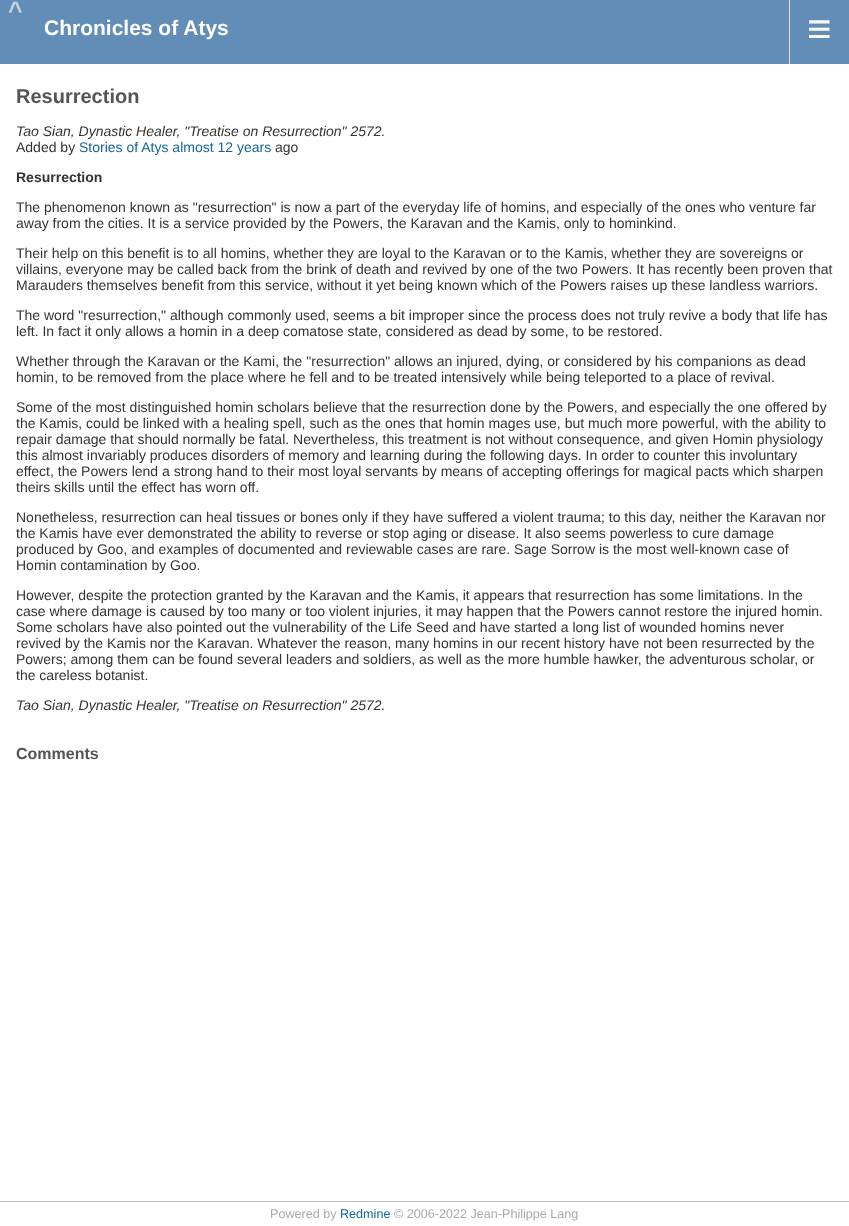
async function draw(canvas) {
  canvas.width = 849
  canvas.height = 1226
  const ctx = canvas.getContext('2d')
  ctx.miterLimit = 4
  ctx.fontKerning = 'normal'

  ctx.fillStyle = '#fff'
  ctx.fillRect(0, 0, 849, 1226)
  ctx.fillStyle = '#628db6'
  ctx.fillRect(0, 0, 849, 64)
  ctx.letterSpacing = '4px'
  ctx.font = 'bold 25px Liberation Sans'
  ctx.fillStyle = '#c0d1e2'
  ctx.fillText('^', 8, 19)
  ctx.letterSpacing = '0px'
  ctx.font = 'bold 21px Liberation Sans'
  ctx.fillStyle = '#fff'
  ctx.fillText('Chronicles of Atys', 44, 35)
  ctx.fillStyle = '#ddd'
  ctx.fillRect(789, 0, 1, 64)
  ctx.font = '42px Liberation Sans'
  ctx.fillStyle = '#f8f8f8'
  ctx.fillText('≡', 807, 43)
  ctx.font = 'bold 20px Liberation Sans'
  ctx.fillStyle = '#555'
  ctx.fillText('Resurrection', 16, 103)
  ctx.font = 'italic 14px Liberation Sans'
  ctx.fillStyle = '#333'
  ctx.fillText('Tao Sian, Dynastic Healer, "Treatise on Resurrection" 2572.', 16, 136)
  ctx.font = '14px Liberation Sans'
  ctx.fillText('Added by', 16, 152)
  ctx.fillStyle = '#169'
  ctx.fillText('Stories of Atys almost 12 years', 79, 152)
  ctx.fillStyle = '#333'
  ctx.fillText('ago', 275, 152)
  ctx.font = 'bold 14px Liberation Sans'
  ctx.fillText('Resurrection', 16, 182)
  ctx.font = '14px Liberation Sans'
  ctx.fillText('The phenomenon known as "resurrection" is now a part of the everyday life of homins, and especially of the ones who venture far', 16, 212)
  ctx.fillText('away from the cities. It is a service provided by the Powers, the Karavan and the Kamis, only to hominkind.', 16, 228)
  ctx.fillText('Their help on this benefit is to all homins, whether they are loyal to the Karavan or to the Kamis, whether they are sovereigns or', 16, 258)
  ctx.fillText('villains, everyone may be called back from the brink of death and revived by one of the two Powers. It has recently been proven that', 16, 274)
  ctx.fillText('Marauders themselves benefit from this service, without it yet being known which of the Powers raises up these landless warriors.', 16, 290)
  ctx.fillText('The word "resurrection," although commonly used, seems a bit improper since the process does not truly revive a body that life has', 16, 320)
  ctx.fillText('left. In fact it only allows a homin in a deep comatose state, considered as dead by some, to be restored.', 16, 336)
  ctx.fillText('Whether through the Karavan or the Kami, the "resurrection" allows an injured, dying, or considered by his companions as dead', 16, 366)
  ctx.fillText('homin, to be removed from the place where he fell and to be treated intensively while being teleported to a place of revival.', 16, 382)
  ctx.fillText('Some of the most distinguished homin scholars believe that the resurrection done by the Powers, and especially the one offered by', 16, 412)
  ctx.fillText('the Kamis, could be linked with a healing spell, such as the ones that homin mages use, but much more powerful, with the ability to', 16, 428)
  ctx.fillText('repair damage that should normally be fatal. Nevertheless, this treatment is not without consequence, and given Homin physiology', 16, 444)
  ctx.fillText('this almost invariably produces disorders of memory and learning during the following days. In order to counter this involuntary', 16, 460)
  ctx.fillText('effect, the Powers lend a strong hand to their most loyal servants by means of accepting offerings for magical pacts which sharpen', 16, 476)
  ctx.fillText('theirs skills until the effect has worn off.', 16, 492)
  ctx.fillText('Nonetheless, resurrection can heal tissues or bones only if they have suffered a violent trauma; to this day, neither the Karavan nor', 16, 522)
  ctx.fillText('the Kamis have ever demonstrated the ability to reverse or stop aging or disease. It also seems powerless to cure damage', 16, 538)
  ctx.fillText('produced by Goo, and examples of documented and reviewable cases are rare. Sage Sorrow is the most well-known case of', 16, 554)
  ctx.fillText('Homin contamination by Goo.', 16, 570)
  ctx.fillText('However, despite the protection granted by the Karavan and the Kamis, it appears that resurrection has some limitations. In the', 16, 600)
  ctx.fillText('case where damage is caused by too many or too violent injuries, it may happen that the Powers cannot restore the injured homin.', 16, 616)
  ctx.fillText('Some scholars have also pointed out the vulnerability of the Life Seed and have started a long list of wounded homins never', 16, 632)
  ctx.fillText('revived by the Kamis nor the Karavan. Whatever the reason, many homins in our recent history have not been resurrected by the', 16, 648)
  ctx.fillText('Powers; among them can be found several leaders and soldiers, as well as the more humble hawker, the adventurous scholar, or', 16, 664)
  ctx.fillText('the careless botanist.', 16, 680)
  ctx.font = 'italic 14px Liberation Sans'
  ctx.fillText('Tao Sian, Dynastic Healer, "Treatise on Resurrection" 2572.', 16, 710)
  ctx.font = 'bold 16px Liberation Sans'
  ctx.fillStyle = '#555'
  ctx.fillText('Comments', 16, 759)
  ctx.fillStyle = '#bbb'
  ctx.fillRect(0, 1201, 849, 1)
  ctx.font = '12.6px Liberation Sans'
  ctx.fillStyle = '#aaa'
  ctx.fillText('Powered by', 270, 1218)
  ctx.fillStyle = '#169'
  ctx.fillText('Redmine', 340, 1218)
  ctx.fillStyle = '#aaa'
  ctx.fillText('© 2006-2022 Jean-Philippe Lang', 394, 1218)
}

draw(document.querySelector('canvas'))
